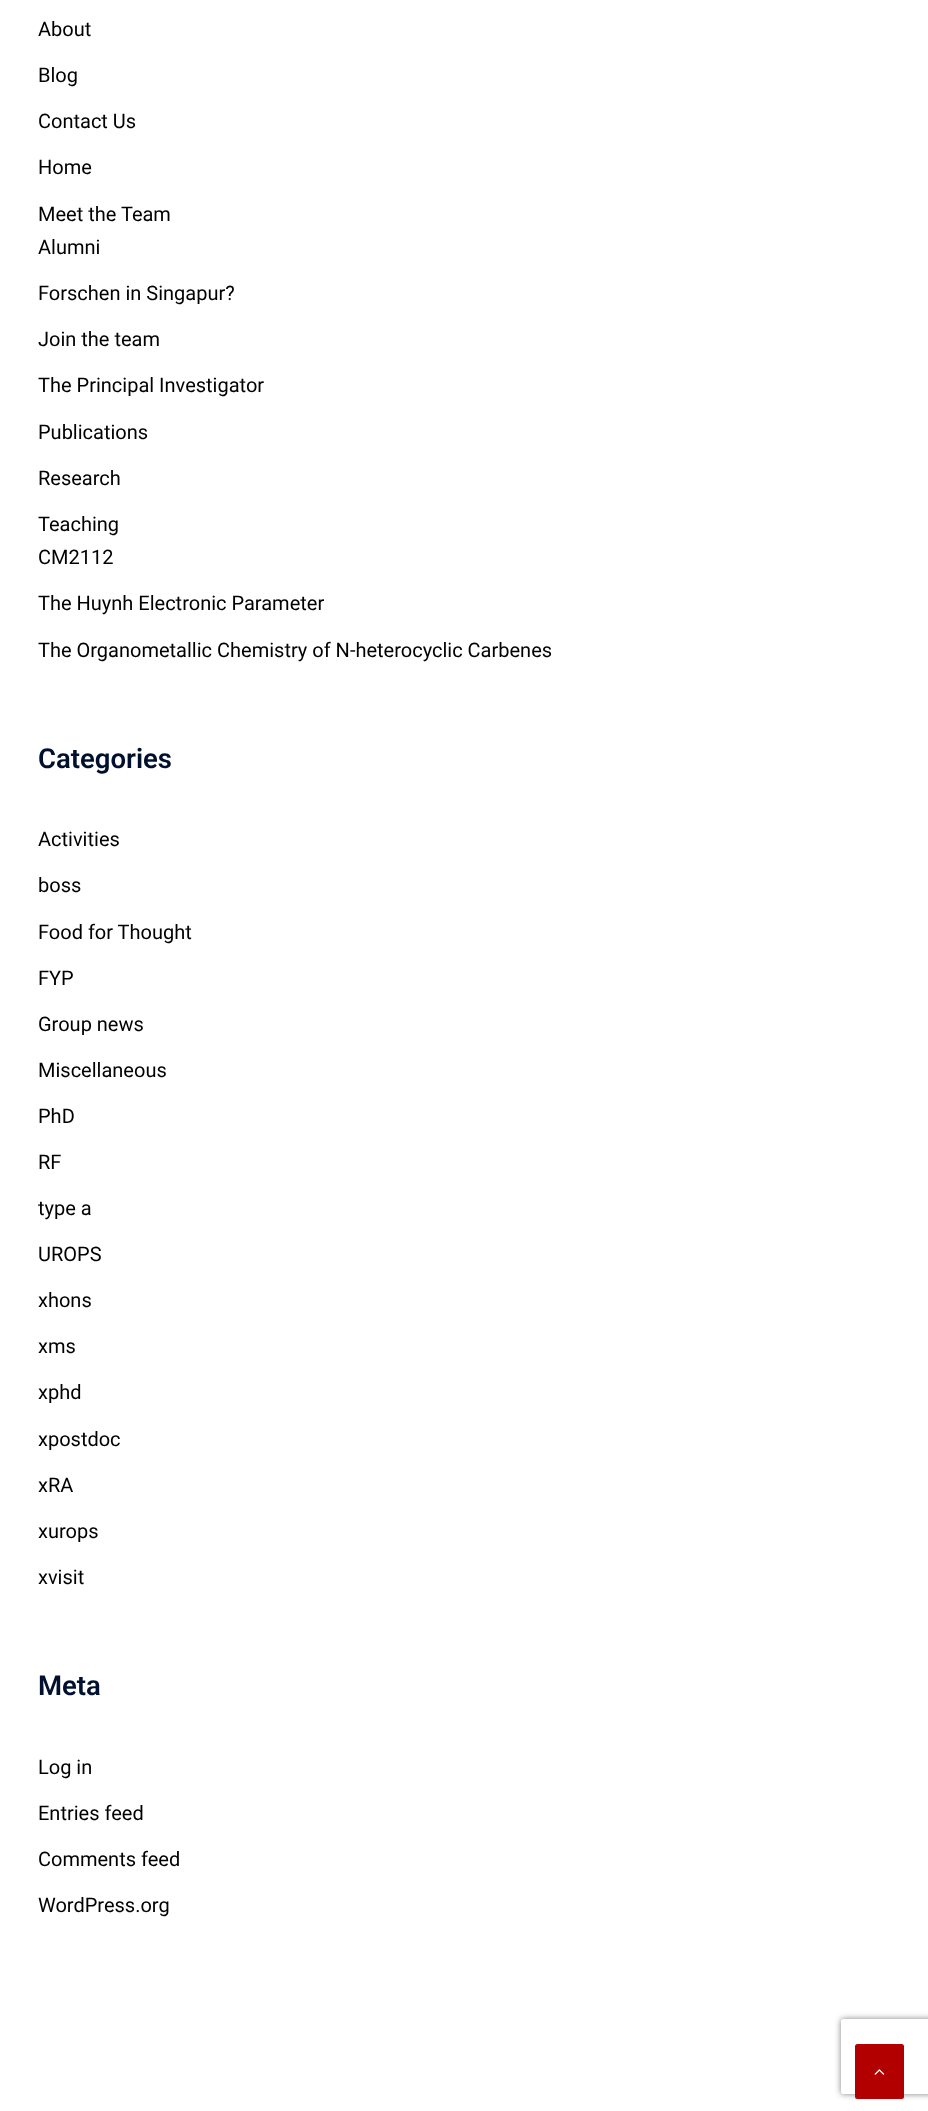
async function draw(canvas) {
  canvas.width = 928
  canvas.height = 2111
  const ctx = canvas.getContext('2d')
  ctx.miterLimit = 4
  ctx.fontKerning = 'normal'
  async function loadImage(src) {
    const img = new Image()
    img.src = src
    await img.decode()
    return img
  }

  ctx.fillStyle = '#fff'
  ctx.fillRect(0, 0, 928, 2111)
  ctx.font = '20px Roboto'
  ctx.fillStyle = '#000'
  ctx.fillText('About', 38, 36)
  ctx.fillText('Blog', 38, 82)
  ctx.fillText('Contact Us', 38, 128)
  ctx.fillText('Home', 38, 174)
  ctx.fillText('Meet the Team', 38, 221)
  ctx.fillText('Alumni', 38, 254)
  ctx.fillText('Forschen in Singapur?', 38, 300)
  ctx.fillText('Join the team', 38, 346)
  ctx.fillText('The Principal Investigator', 38, 392)
  ctx.fillText('Publications', 38, 439)
  ctx.fillText('Research', 38, 485)
  ctx.fillText('Teaching', 38, 531)
  ctx.fillText('CM2112', 38, 564)
  ctx.fillText('The Huynh Electronic Parameter', 38, 610)
  ctx.fillText('The Organometallic Chemistry of N-heterocyclic Carbenes', 38, 657)
  ctx.font = '600 27.5px Roboto'
  ctx.fillStyle = '#00102e'
  ctx.fillText('Categories', 38, 768)
  ctx.font = '20px Roboto'
  ctx.fillStyle = '#000'
  ctx.fillText('Activities', 38, 846)
  ctx.fillText('boss', 38, 892)
  ctx.fillText('Food for Thought', 38, 939)
  ctx.fillText('FYP', 38, 985)
  ctx.fillText('Group news', 38, 1031)
  ctx.fillText('Miscellaneous', 38, 1077)
  ctx.fillText('PhD', 38, 1123)
  ctx.fillText('RF', 38, 1169)
  ctx.fillText('type a', 38, 1215)
  ctx.fillText('UROPS', 38, 1261)
  ctx.fillText('xhons', 38, 1307)
  ctx.fillText('xms', 38, 1353)
  ctx.fillText('xphd', 38, 1399)
  ctx.fillText('xpostdoc', 38, 1446)
  ctx.fillText('xRA', 38, 1492)
  ctx.fillText('xurops', 38, 1538)
  ctx.fillText('xvisit', 38, 1584)
  ctx.font = '600 27.5px Roboto'
  ctx.fillStyle = '#00102e'
  ctx.fillText('Meta', 38, 1695)
  ctx.font = '20px Roboto'
  ctx.fillStyle = '#000'
  ctx.fillText('Log in', 38, 1774)
  ctx.fillText('Entries feed', 38, 1820)
  ctx.fillText('Comments feed', 38, 1866)
  ctx.fillText('WordPress.org', 38, 1912)
  ctx.save()
  ctx.beginPath()
  ctx.moveTo(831, 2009)
  ctx.lineTo(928, 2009)
  ctx.lineTo(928, 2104)
  ctx.lineTo(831, 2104)
  ctx.closePath()
  ctx.moveTo(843.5, 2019)
  ctx.lineTo(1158.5, 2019)
  ctx.bezierCurveTo(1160, 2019, 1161, 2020, 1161, 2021.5)
  ctx.lineTo(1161, 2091.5)
  ctx.bezierCurveTo(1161, 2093, 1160, 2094, 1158.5, 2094)
  ctx.lineTo(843.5, 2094)
  ctx.bezierCurveTo(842, 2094, 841, 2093, 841, 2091.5)
  ctx.lineTo(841, 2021.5)
  ctx.bezierCurveTo(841, 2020, 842, 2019, 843.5, 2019)
  ctx.closePath()
  ctx.clip('evenodd')
  ctx.fillStyle = '#808080'
  ctx.filter = 'blur(3px)'
  ctx.beginPath()
  ctx.roundRect(841, 2019, 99, 75, 2.5)
  ctx.fill()
  ctx.filter = 'none'
  ctx.restore()
  ctx.fillStyle = '#b20000'
  ctx.beginPath()
  ctx.roundRect(855, 2044, 49, 55, 2.5)
  ctx.fill()
  ctx.drawImage(await loadImage('image0.png'), 874, 2069, 11, 6)
}

draw(document.querySelector('canvas'))
